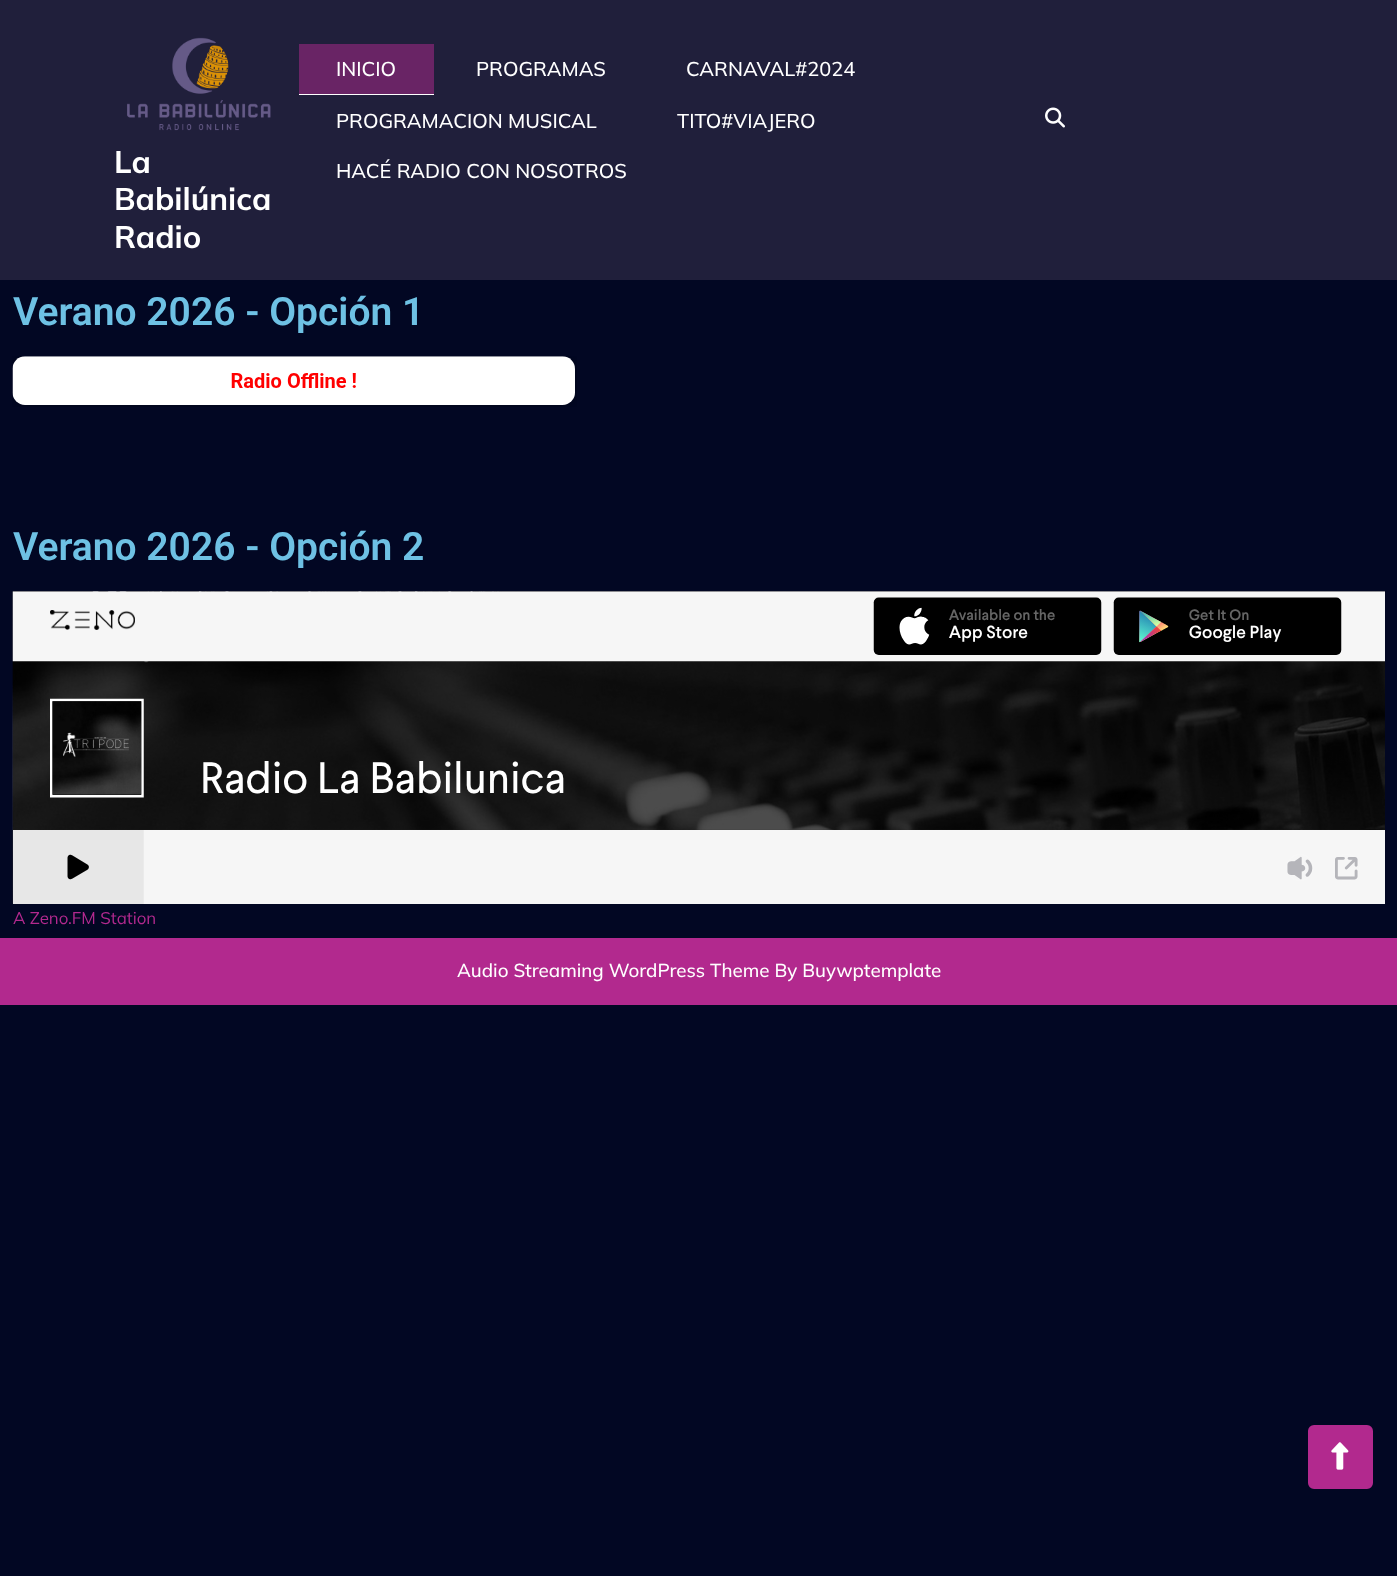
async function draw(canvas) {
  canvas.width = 1397
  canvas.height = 1576
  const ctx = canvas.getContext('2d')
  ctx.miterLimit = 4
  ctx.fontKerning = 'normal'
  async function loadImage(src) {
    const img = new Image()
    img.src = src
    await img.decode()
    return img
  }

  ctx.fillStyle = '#020723'
  ctx.fillRect(0, 0, 1397, 1576)
  ctx.fillStyle = '#201f3b'
  ctx.fillRect(0, 0, 1397, 280)
  ctx.fillStyle = '#692465'
  ctx.fillRect(299, 44, 135, 50)
  ctx.fillStyle = '#fff'
  ctx.fillRect(299, 94, 135, 1)
  ctx.font = '500 20px Mulish'
  ctx.fillText('INICIO', 336, 76)
  ctx.fillText('PROGRAMAS', 476, 76)
  ctx.fillText('CARNAVAL#2024', 686, 76)
  ctx.fillText('PROGRAMACION MUSICAL', 336, 128)
  ctx.fillText('TITO#VIAJERO', 677, 128)
  ctx.fillText('HACÉ RADIO CON NOSOTROS', 336, 178)
  ctx.drawImage(await loadImage('image0.png'), 1045, 107, 20, 21)
  ctx.drawImage(await loadImage('image1.png'), 127, 37, 144, 94)
  ctx.font = 'bold 31.25px Mulish'
  ctx.fillText('La', 114, 173)
  ctx.fillText('Babilúnica', 114, 210)
  ctx.fillText('Radio', 114, 248)
  ctx.font = '600 39px Roboto'
  ctx.fillStyle = '#6ec1e4'
  ctx.fillText('Verano 2026 - Opción 1', 13, 325)
  ctx.drawImage(await loadImage('image2.png'), 12, 356, 565, 51)
  ctx.fillText('Verano 2026 - Opción 2', 13, 560)
  ctx.drawImage(await loadImage('image3.png'), 12, 591, 1373, 313)
  ctx.font = '16.9px Mulish'
  ctx.fillStyle = '#b2298e'
  ctx.fillText('A Zeno.FM Station', 13, 924)
  ctx.fillRect(0, 938, 1397, 67)
  ctx.font = '500 18.75px Mulish'
  ctx.fillStyle = '#fff'
  ctx.fillText('Audio Streaming WordPress Theme By Buywptemplate', 457, 977)
  ctx.fillStyle = '#b2298e'
  ctx.beginPath()
  ctx.roundRect(1309.5, 1426.5, 62, 61, 4.5)
  ctx.fill()
  ctx.strokeStyle = '#b2298e'
  ctx.lineWidth = 3
  ctx.stroke()
  ctx.drawImage(await loadImage('image4.png'), 1331, 1442, 18, 28)
}

draw(document.querySelector('canvas'))
